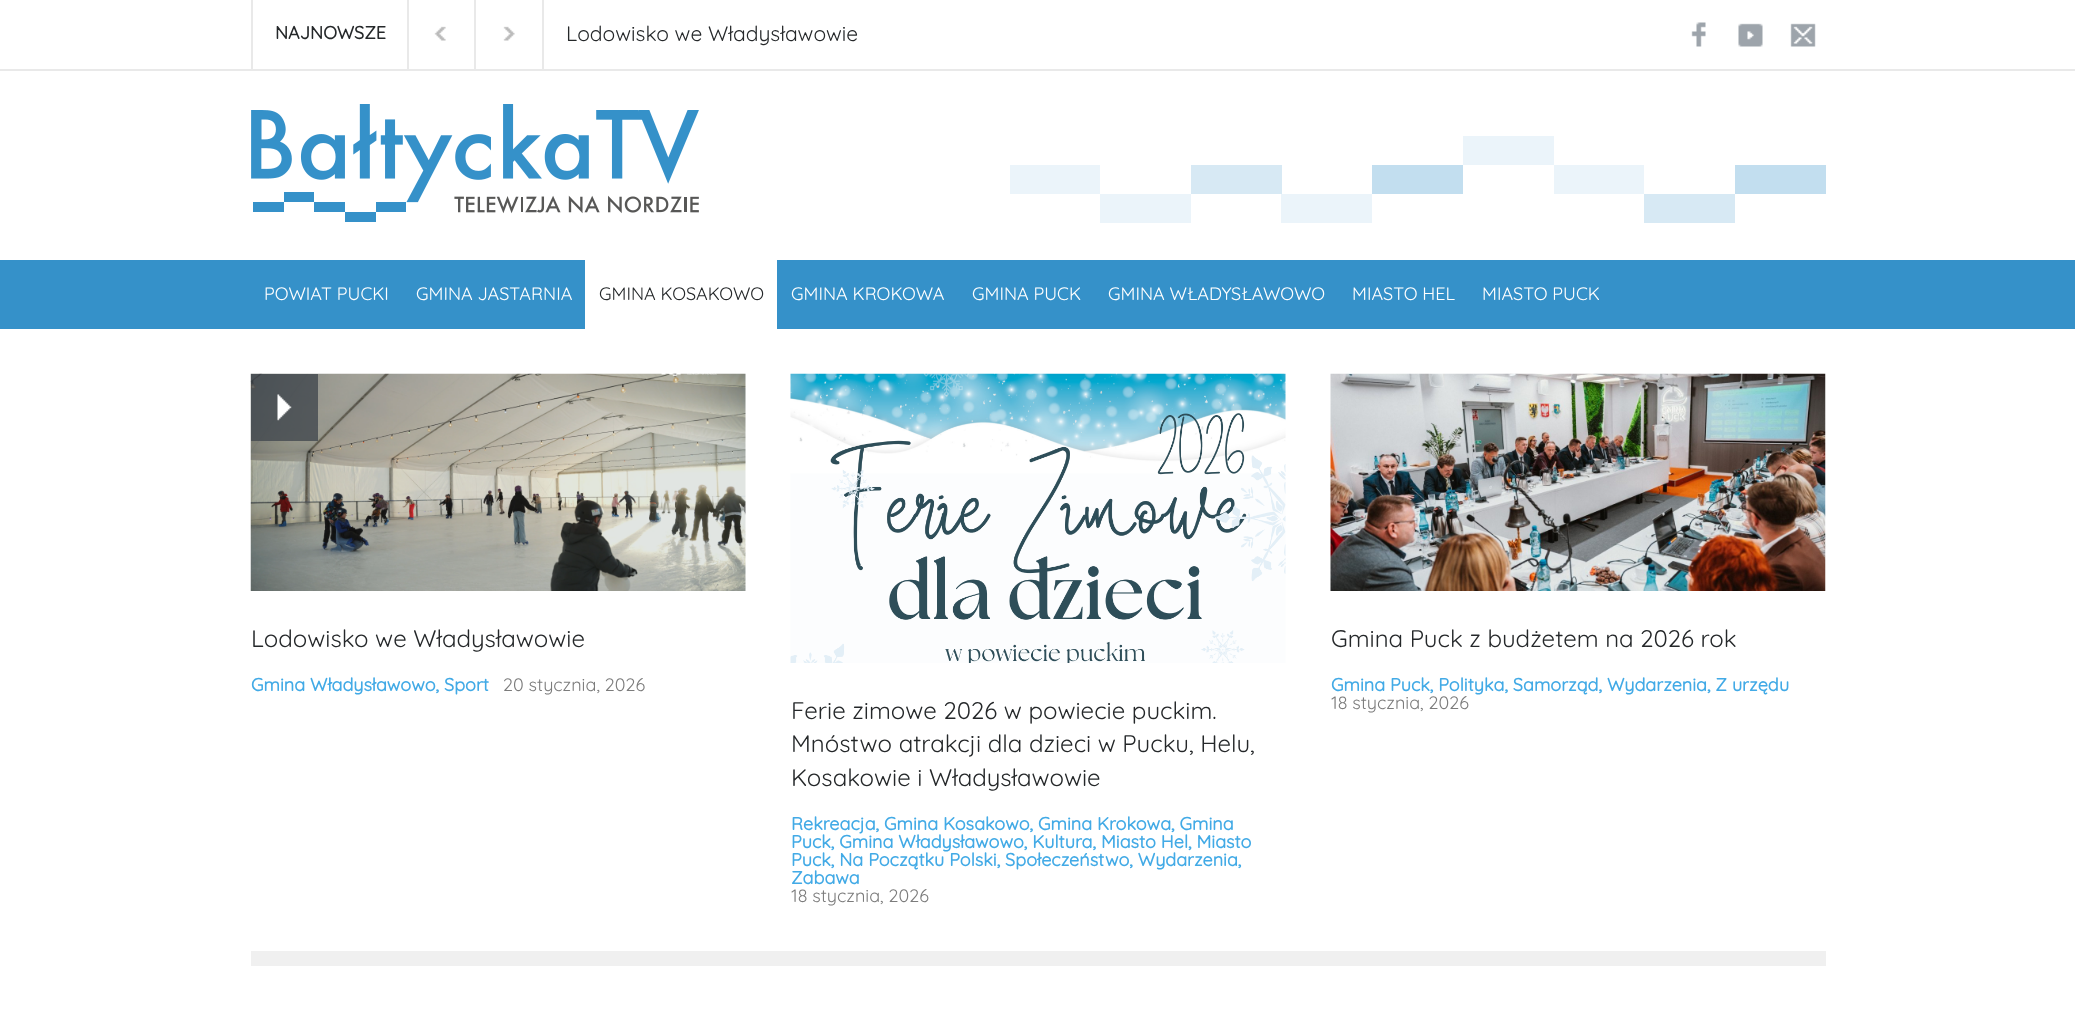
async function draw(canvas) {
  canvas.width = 2075
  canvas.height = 1018
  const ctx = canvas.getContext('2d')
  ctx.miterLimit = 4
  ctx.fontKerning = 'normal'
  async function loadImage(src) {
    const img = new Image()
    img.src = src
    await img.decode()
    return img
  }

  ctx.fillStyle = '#fff'
  ctx.fillRect(0, 0, 2075, 1018)
  ctx.fillStyle = '#e9e9e9'
  ctx.fillRect(0, 69, 2075, 2)
  ctx.fillRect(407, 0, 2, 69)
  ctx.fillRect(251, 0, 2, 69)
  ctx.font = 'bold 18px Quicksand'
  ctx.fillStyle = '#25282a'
  ctx.fillText('NAJNOWSZE', 275, 39)
  ctx.fillStyle = '#e9e9e9'
  ctx.fillRect(474, 0, 2, 69)
  ctx.drawImage(await loadImage('image0.png'), 434, 26, 12, 15)
  ctx.fillRect(542, 0, 2, 69)
  ctx.drawImage(await loadImage('image1.png'), 503, 26, 12, 15)
  ctx.font = '300 21px Quicksand'
  ctx.fillStyle = '#25282a'
  ctx.fillText('Lodowisko we Władysławowie', 566, 41)
  ctx.drawImage(await loadImage('image2.png'), 1691, 22, 15, 25)
  ctx.drawImage(await loadImage('image3.png'), 1738, 23, 25, 24)
  ctx.drawImage(await loadImage('image4.png'), 1790, 23, 26, 24)
  ctx.drawImage(await loadImage('image5.png'), 251, 104, 448, 118)
  ctx.fillStyle = '#ebf4fa'
  ctx.fillRect(1463, 136, 91, 29)
  ctx.fillRect(1010, 165, 90, 29)
  ctx.fillStyle = '#d7e9f4'
  ctx.fillRect(1191, 165, 91, 29)
  ctx.fillStyle = '#c2deef'
  ctx.fillRect(1372, 165, 91, 29)
  ctx.fillStyle = '#ebf4fa'
  ctx.fillRect(1554, 165, 90, 29)
  ctx.fillStyle = '#c2deef'
  ctx.fillRect(1735, 165, 91, 29)
  ctx.fillStyle = '#ebf4fa'
  ctx.fillRect(1100, 194, 91, 29)
  ctx.fillRect(1281, 194, 91, 29)
  ctx.fillStyle = '#d7e9f4'
  ctx.fillRect(1644, 194, 91, 29)
  ctx.fillStyle = '#3591c9'
  ctx.fillRect(0, 260, 2075, 69)
  ctx.font = '300 18px Quicksand'
  ctx.fillStyle = '#fff'
  ctx.fillText('POWIAT PUCKI', 264, 300)
  ctx.fillText('GMINA JASTARNIA', 416, 300)
  ctx.fillRect(585, 260, 192, 69)
  ctx.fillStyle = '#25282a'
  ctx.fillText('GMINA KOSAKOWO', 599, 300)
  ctx.fillStyle = '#fff'
  ctx.fillText('GMINA KROKOWA', 791, 300)
  ctx.fillText('GMINA PUCK', 972, 300)
  ctx.fillText('GMINA WŁADYSŁAWOWO', 1108, 300)
  ctx.fillText('MIASTO HEL', 1352, 300)
  ctx.fillText('MIASTO PUCK', 1482, 300)
  ctx.drawImage(await loadImage('image6.png'), 250, 373, 496, 218)
  ctx.fillStyle = '#42494fcc'
  ctx.fillRect(251, 374, 67, 67)
  ctx.drawImage(await loadImage('image7.png'), 277, 394, 15, 27)
  ctx.font = '300 24px Quicksand'
  ctx.fillStyle = '#25282a'
  ctx.fillText('Lodowisko we Władysławowie', 251, 647)
  ctx.font = 'bold 18px Quicksand'
  ctx.fillStyle = '#42aae6'
  ctx.fillText('Gmina Władysławowo, Sport', 251, 691)
  ctx.font = '300 18px Quicksand'
  ctx.fillStyle = '#7c7c7c'
  ctx.fillText('20 stycznia, 2026', 503, 691)
  ctx.drawImage(await loadImage('image8.png'), 1330, 373, 496, 218)
  ctx.font = '300 24px Quicksand'
  ctx.fillStyle = '#25282a'
  ctx.fillText('Gmina Puck z budżetem na 2026 rok', 1331, 647)
  ctx.font = 'bold 18px Quicksand'
  ctx.fillStyle = '#42aae6'
  ctx.fillText('Gmina Puck, Polityka, Samorząd, Wydarzenia, Z urzędu', 1331, 691)
  ctx.font = '300 18px Quicksand'
  ctx.fillStyle = '#7c7c7c'
  ctx.fillText('18 stycznia, 2026', 1331, 709)
  ctx.drawImage(await loadImage('image9.png'), 790, 373, 496, 290)
  ctx.font = '300 24px Quicksand'
  ctx.fillStyle = '#25282a'
  ctx.fillText('Ferie zimowe 2026 w powiecie puckim.', 791, 719)
  ctx.fillText('Mnóstwo atrakcji dla dzieci w Pucku, Helu,', 791, 752)
  ctx.fillText('Kosakowie i Władysławowie', 791, 786)
  ctx.font = 'bold 18px Quicksand'
  ctx.fillStyle = '#42aae6'
  ctx.fillText('Rekreacja, Gmina Kosakowo, Gmina Krokowa, Gmina', 791, 830)
  ctx.fillText('Puck, Gmina Władysławowo, Kultura, Miasto Hel, Miasto', 791, 848)
  ctx.fillText('Puck, Na Początku Polski, Społeczeństwo, Wydarzenia,', 791, 866)
  ctx.fillText('Zabawa', 791, 884)
  ctx.font = '300 18px Quicksand'
  ctx.fillStyle = '#7c7c7c'
  ctx.fillText('18 stycznia, 2026', 791, 902)
  ctx.fillStyle = '#f0f0f0'
  ctx.fillRect(251, 951, 1575, 15)
}

draw(document.querySelector('canvas'))
